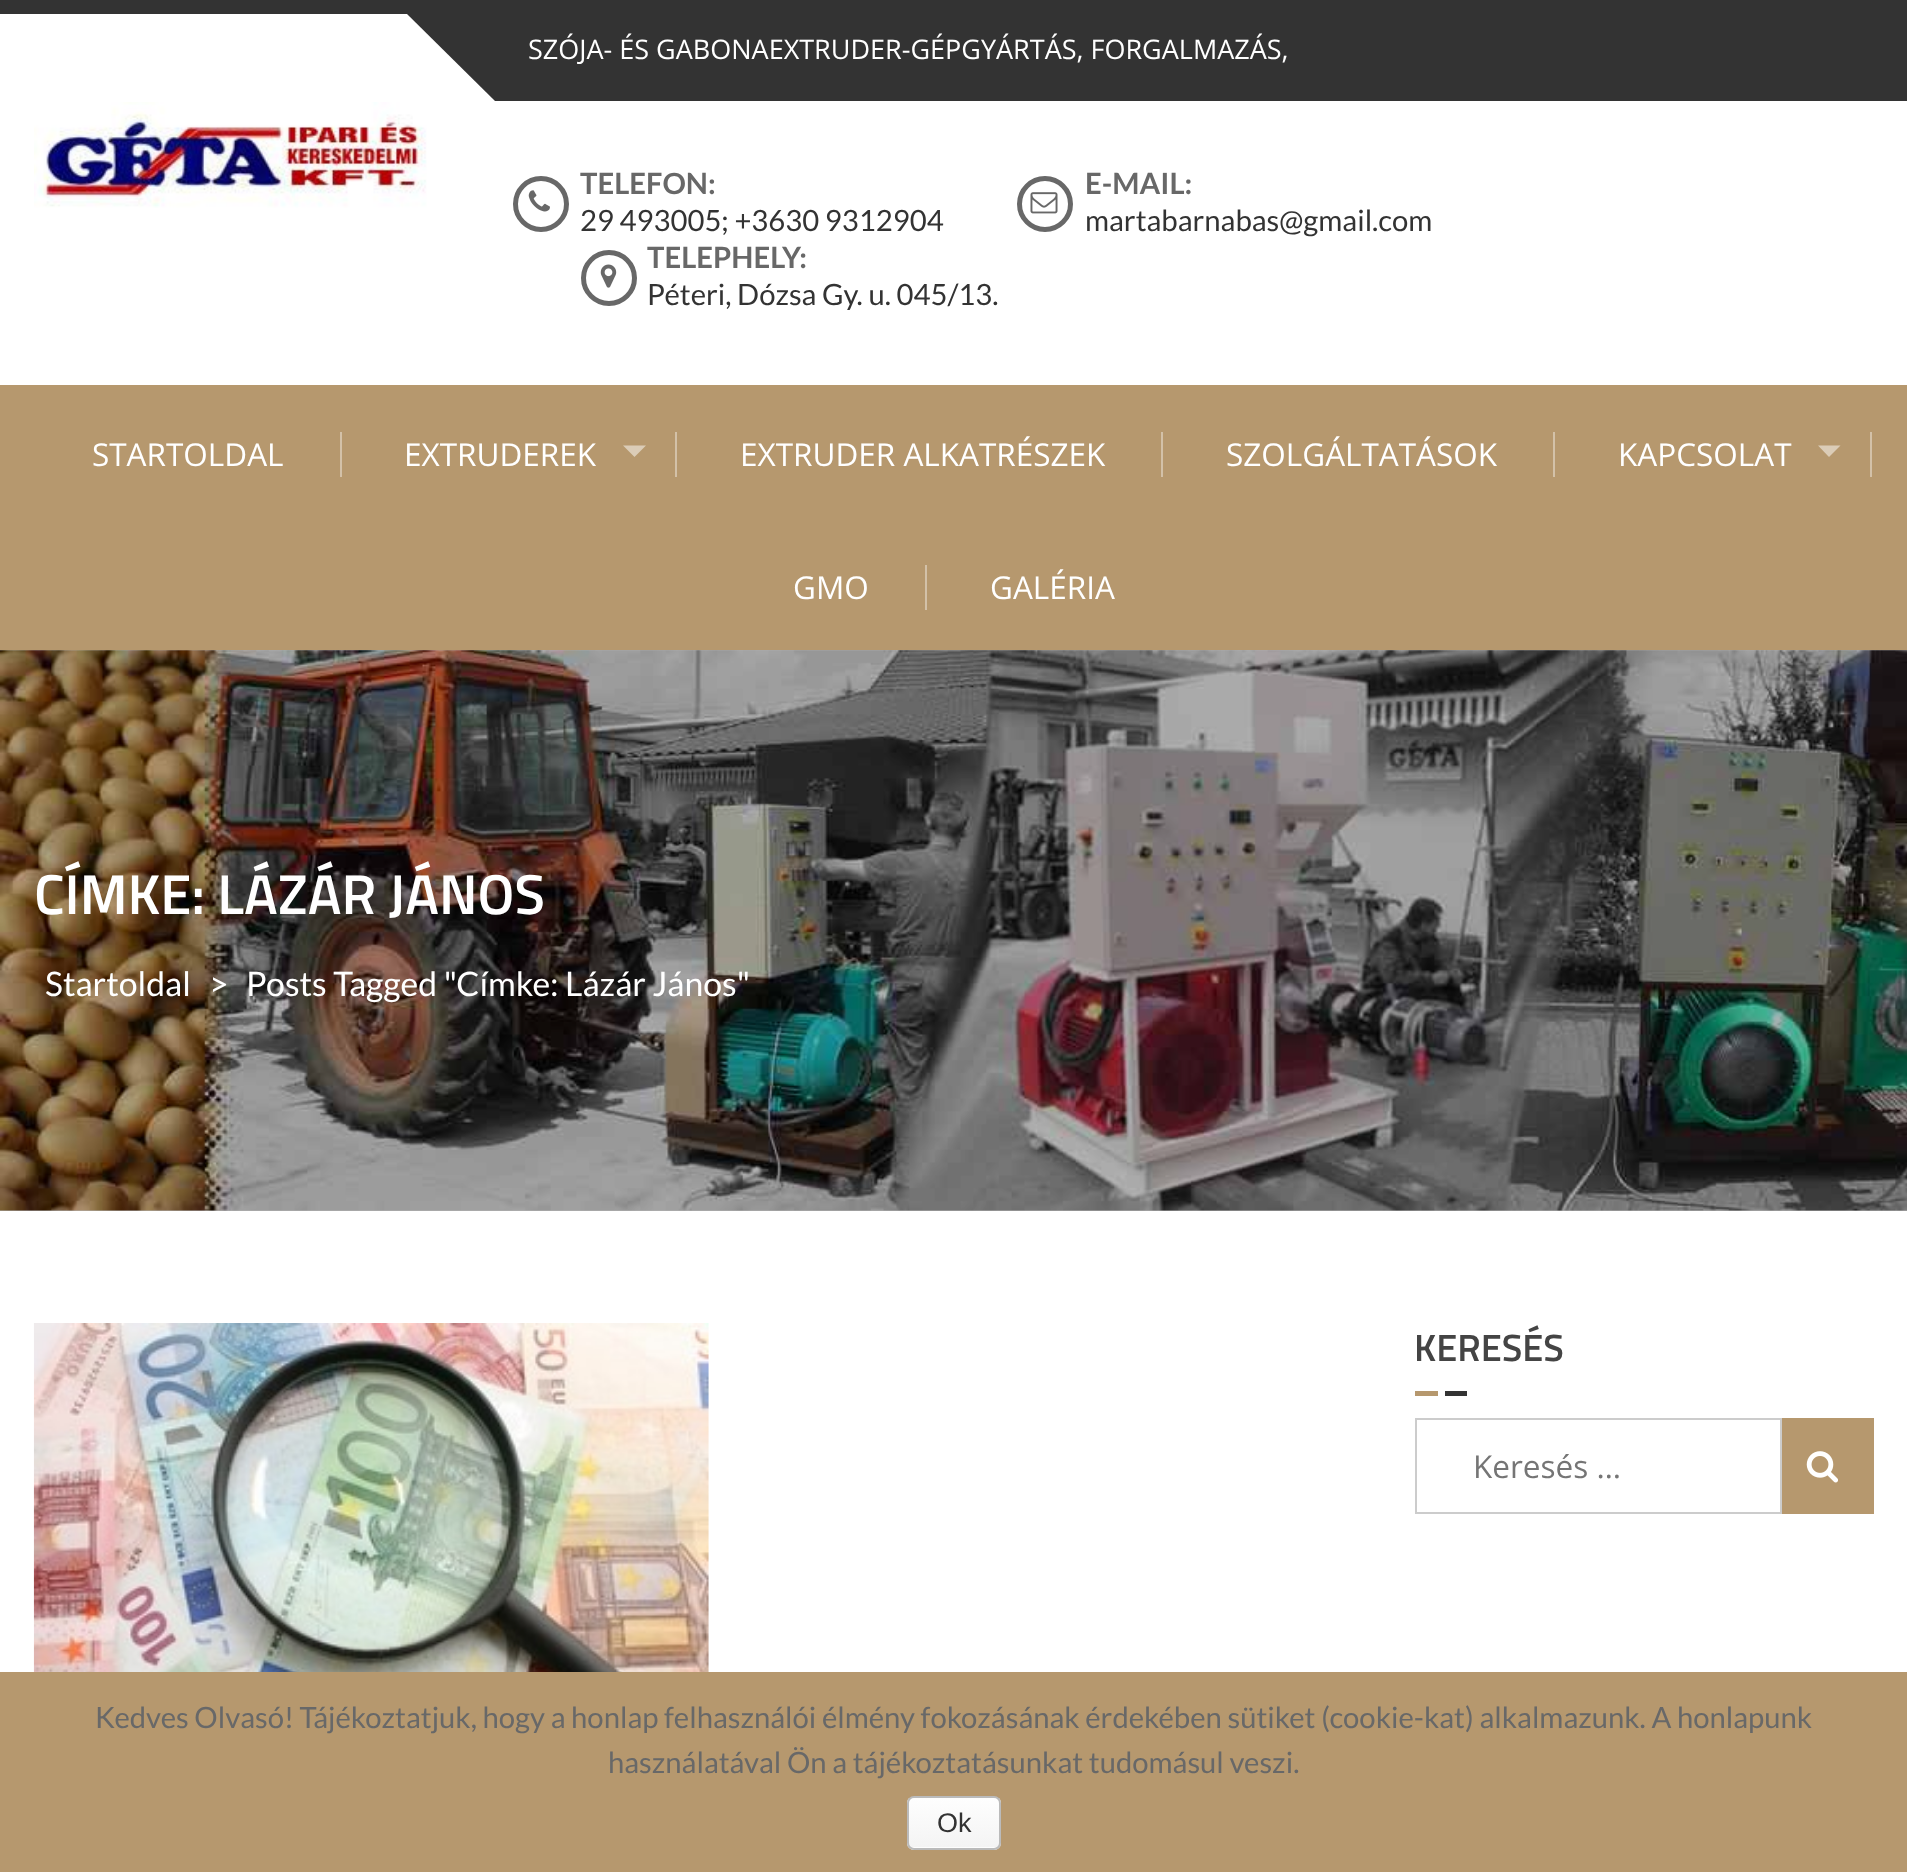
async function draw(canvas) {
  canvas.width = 1907
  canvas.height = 1872
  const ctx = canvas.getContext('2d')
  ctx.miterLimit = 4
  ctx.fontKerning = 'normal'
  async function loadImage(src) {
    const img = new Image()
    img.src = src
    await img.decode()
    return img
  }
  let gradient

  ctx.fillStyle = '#fff'
  ctx.fillRect(0, 0, 1907, 1872)
  ctx.fillStyle = '#b3b3b3'
  ctx.fillRect(0, 650, 1907, 561)
  ctx.fillStyle = '#333'
  ctx.fillRect(0, 0, 1907, 14)
  ctx.fillRect(495, 14, 1412, 87)
  ctx.beginPath()
  ctx.moveTo(407, 14)
  ctx.lineTo(495, 14)
  ctx.lineTo(495, 101)
  ctx.closePath()
  ctx.fill()
  ctx.font = '27px Open Sans'
  ctx.fillStyle = '#fff'
  ctx.fillText('SZÓJA- ÉS GABONAEXTRUDER-GÉPGYÁRTÁS, FORGALMAZÁS,', 528, 59)
  ctx.drawImage(await loadImage('image0.png'), 34, 102, 393, 106)
  ctx.beginPath()
  ctx.arc(541, 204, 25.5, 0, 2 * Math.PI)
  ctx.strokeStyle = '#686868'
  ctx.lineWidth = 5
  ctx.stroke()
  ctx.drawImage(await loadImage('image1.png'), 528, 190, 22, 22)
  ctx.font = 'bold 29.25px Lato'
  ctx.fillStyle = '#686868'
  ctx.fillText('TELEFON:', 580, 194)
  ctx.font = '29.25px Lato'
  ctx.fillStyle = '#333'
  ctx.fillText('29 493005; +3630 9312904', 580, 231)
  ctx.beginPath()
  ctx.arc(1045, 204, 25.5, 0, 2 * Math.PI)
  ctx.stroke()
  ctx.drawImage(await loadImage('image2.png'), 1030, 192, 28, 22)
  ctx.font = 'bold 29.25px Lato'
  ctx.fillStyle = '#686868'
  ctx.fillText('E-MAIL:', 1085, 194)
  ctx.font = '29.25px Lato'
  ctx.fillStyle = '#333'
  ctx.fillText('martabarnabas@gmail.com', 1085, 231)
  ctx.beginPath()
  ctx.arc(609, 278, 25.5, 0, 2 * Math.PI)
  ctx.stroke()
  ctx.drawImage(await loadImage('image3.png'), 600, 264, 17, 24)
  ctx.font = 'bold 29.25px Lato'
  ctx.fillStyle = '#686868'
  ctx.fillText('TELEPHELY:', 647, 268)
  ctx.font = '29.25px Lato'
  ctx.fillStyle = '#333'
  ctx.fillText('Péteri, Dózsa Gy. u. 045/13.', 647, 305)
  ctx.fillStyle = '#b6986e'
  ctx.fillRect(0, 385, 1907, 265)
  ctx.fillStyle = '#d3c1a8'
  ctx.fillRect(340, 432, 2, 45)
  ctx.font = '31.5px Open Sans'
  ctx.fillStyle = '#fff'
  ctx.fillText('STARTOLDAL', 92, 466)
  ctx.fillStyle = '#d3c1a8'
  ctx.fillRect(675, 432, 2, 45)
  ctx.fillStyle = '#fff'
  ctx.fillText('EXTRUDEREK', 404, 466)
  ctx.fillStyle = '#dbccb7'
  ctx.beginPath()
  ctx.moveTo(623, 445.5)
  ctx.lineTo(646, 445.5)
  ctx.lineTo(634.5, 457)
  ctx.closePath()
  ctx.fill()
  ctx.fillStyle = '#d3c1a8'
  ctx.fillRect(1161, 432, 2, 45)
  ctx.fillStyle = '#fff'
  ctx.fillText('EXTRUDER ALKATRÉSZEK', 740, 466)
  ctx.fillStyle = '#d3c1a8'
  ctx.fillRect(1553, 432, 2, 45)
  ctx.fillStyle = '#fff'
  ctx.fillText('SZOLGÁLTATÁSOK', 1226, 466)
  ctx.fillStyle = '#d3c1a8'
  ctx.fillRect(1870, 432, 2, 45)
  ctx.fillStyle = '#fff'
  ctx.fillText('KAPCSOLAT', 1618, 466)
  ctx.fillStyle = '#dbccb7'
  ctx.beginPath()
  ctx.moveTo(1818, 445.5)
  ctx.lineTo(1840.5, 445.5)
  ctx.lineTo(1829, 457)
  ctx.closePath()
  ctx.fill()
  ctx.fillStyle = '#d3c1a8'
  ctx.fillRect(925, 565, 2, 45)
  ctx.fillStyle = '#fff'
  ctx.fillText('GMO', 793, 599)
  ctx.fillText('GALÉRIA', 990, 599)
  ctx.drawImage(await loadImage('image4.png'), 0, 650, 1907, 561)
  ctx.font = '600 56.25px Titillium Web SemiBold'
  ctx.fillText('CÍMKE: LÁZÁR JÁNOS', 34, 914)
  ctx.font = '33.75px Lato'
  ctx.fillText('Startoldal', 45, 996)
  ctx.fillText('>', 209, 996)
  ctx.fillText('Posts Tagged "Címke: Lázár János"', 246, 996)
  ctx.drawImage(await loadImage('image5.png'), 33, 1323, 676, 349)
  ctx.font = '600 38px Titillium Web SemiBold'
  ctx.fillStyle = '#444'
  ctx.fillText('KERESÉS', 1414, 1361)
  ctx.fillStyle = '#b6986e'
  ctx.fillRect(1415, 1391, 23, 5)
  ctx.fillStyle = '#333'
  ctx.fillRect(1445, 1391, 22, 5)
  ctx.fillStyle = '#b6986e'
  ctx.fillRect(1782, 1418, 92, 96)
  ctx.strokeStyle = '#ccc'
  ctx.lineWidth = 2
  ctx.strokeRect(1416, 1419, 365, 94)
  ctx.font = '31.5px Open Sans'
  ctx.fillStyle = '#757575'
  ctx.fillText('Keresés …', 1473, 1478)
  ctx.drawImage(await loadImage('image6.png'), 1806, 1451, 32, 32)
  ctx.fillStyle = '#b6986e'
  ctx.fillRect(0, 1672, 1907, 200)
  ctx.font = '29.25px Lato'
  ctx.fillStyle = '#686868'
  ctx.fillText('Kedves Olvasó! Tájékoztatjuk, hogy a honlap felhasználói élmény fokozásának érdekében sütiket (cookie-kat) alkalmazunk. A honlapunk', 95, 1728)
  ctx.fillText('használatával Ön a tájékoztatásunkat tudomásul veszi.', 608, 1773)
  ctx.save()
  ctx.beginPath()
  ctx.roundRect(907, 1796, 94, 54, 7)
  ctx.clip()
  gradient = ctx.createLinearGradient(954, 1798, 954, 1847)
  gradient.addColorStop(0, '#fefefe')
  gradient.addColorStop(1, '#f4f4f4')
  ctx.fillStyle = gradient
  ctx.fillRect(907, 1798, 94, 49)
  gradient = ctx.createLinearGradient(954, 1847, 954, 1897)
  gradient.addColorStop(0, '#fefefe')
  gradient.addColorStop(1, '#f4f4f4')
  ctx.fillStyle = gradient
  ctx.fillRect(907, 1847, 94, 3)
  ctx.restore()
  ctx.beginPath()
  ctx.roundRect(908, 1797, 92, 52, 6)
  ctx.strokeStyle = '#bbb'
  ctx.stroke()
  ctx.font = '27px Liberation Sans'
  ctx.fillStyle = '#333'
  ctx.fillText('Ok', 937, 1832)
}

draw(document.querySelector('canvas'))
